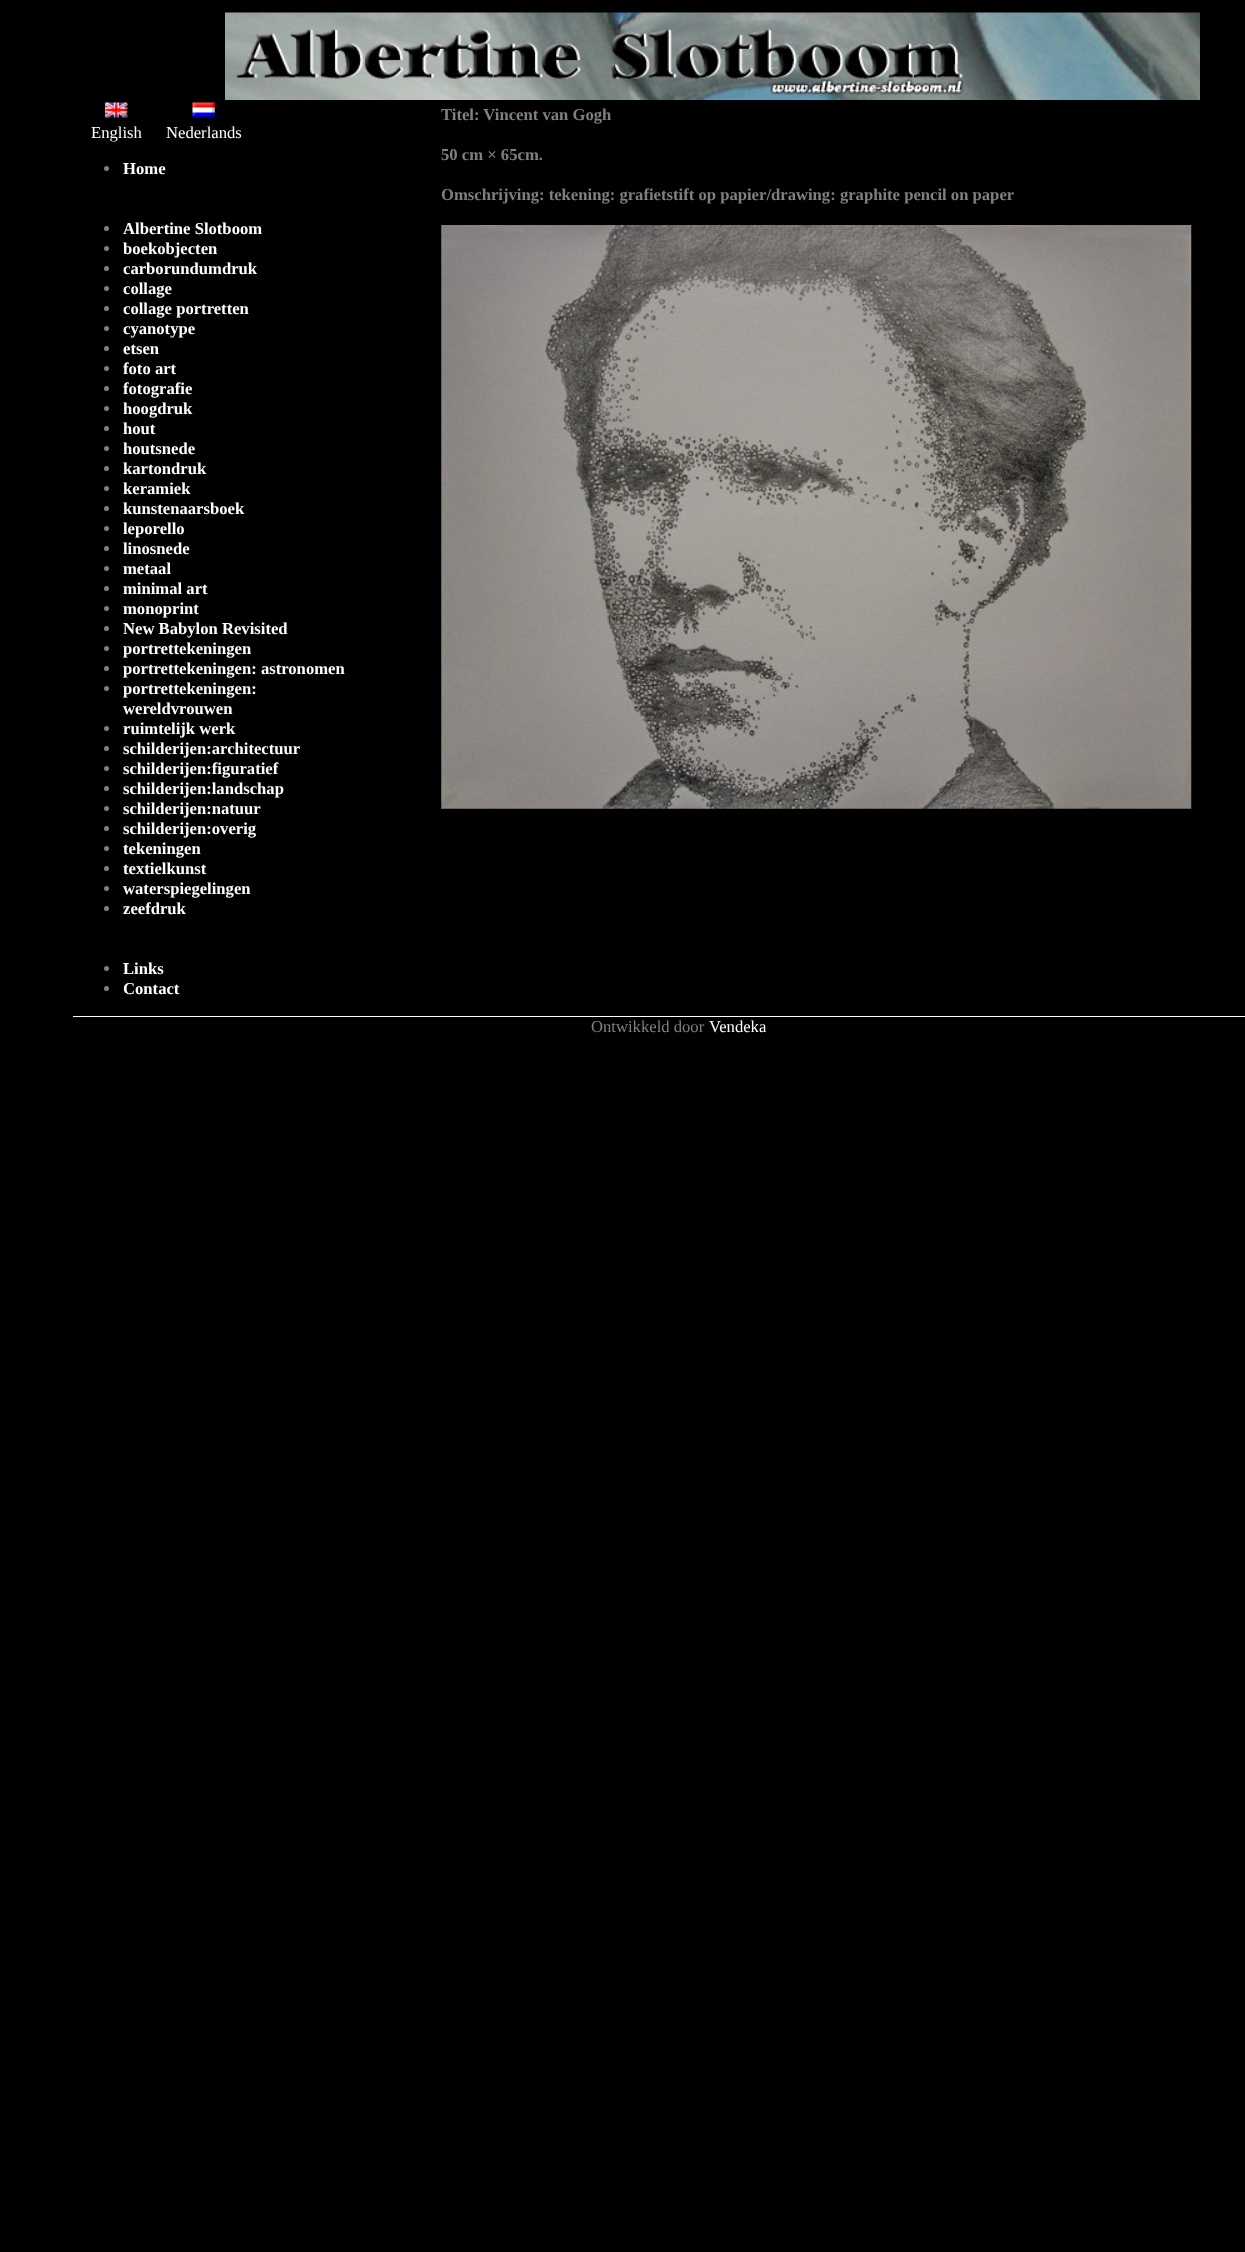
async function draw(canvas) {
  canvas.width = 1245
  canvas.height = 2252
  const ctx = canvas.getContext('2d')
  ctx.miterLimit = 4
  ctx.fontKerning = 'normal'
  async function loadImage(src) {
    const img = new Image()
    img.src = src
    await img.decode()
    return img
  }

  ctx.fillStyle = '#000'
  ctx.fillRect(0, 0, 1245, 2252)
  ctx.drawImage(await loadImage('image0.png'), 225, 12, 975, 88)
  ctx.drawImage(await loadImage('image1.png'), 105, 102, 23, 16)
  ctx.font = '16.65px Liberation Serif'
  ctx.fillStyle = '#fff'
  ctx.fillText('English', 91, 138)
  ctx.drawImage(await loadImage('image2.png'), 192, 102, 23, 16)
  ctx.fillText('Nederlands', 166, 138)
  ctx.fillStyle = '#808080'
  ctx.beginPath()
  ctx.arc(106.5, 168.5, 2.5, 0, 2 * Math.PI)
  ctx.fill()
  ctx.font = 'bold 16.65px Liberation Serif'
  ctx.fillStyle = '#fff'
  ctx.fillText('Home', 123, 174)
  ctx.fillStyle = '#808080'
  ctx.beginPath()
  ctx.arc(106.5, 228.5, 2.5, 0, 2 * Math.PI)
  ctx.fill()
  ctx.fillStyle = '#fff'
  ctx.fillText('Albertine Slotboom', 123, 234)
  ctx.fillStyle = '#808080'
  ctx.beginPath()
  ctx.arc(106.5, 248.5, 2.5, 0, 2 * Math.PI)
  ctx.fill()
  ctx.fillStyle = '#fff'
  ctx.fillText('boekobjecten', 123, 254)
  ctx.fillStyle = '#808080'
  ctx.beginPath()
  ctx.arc(106.5, 268.5, 2.5, 0, 2 * Math.PI)
  ctx.fill()
  ctx.fillStyle = '#fff'
  ctx.fillText('carborundumdruk', 123, 274)
  ctx.fillStyle = '#808080'
  ctx.beginPath()
  ctx.arc(106.5, 288.5, 2.5, 0, 2 * Math.PI)
  ctx.fill()
  ctx.fillStyle = '#fff'
  ctx.fillText('collage', 123, 294)
  ctx.fillStyle = '#808080'
  ctx.beginPath()
  ctx.arc(106.5, 308.5, 2.5, 0, 2 * Math.PI)
  ctx.fill()
  ctx.fillStyle = '#fff'
  ctx.fillText('collage portretten', 123, 314)
  ctx.fillStyle = '#808080'
  ctx.beginPath()
  ctx.arc(106.5, 328.5, 2.5, 0, 2 * Math.PI)
  ctx.fill()
  ctx.fillStyle = '#fff'
  ctx.fillText('cyanotype', 123, 334)
  ctx.fillStyle = '#808080'
  ctx.beginPath()
  ctx.arc(106.5, 348.5, 2.5, 0, 2 * Math.PI)
  ctx.fill()
  ctx.fillStyle = '#fff'
  ctx.fillText('etsen', 123, 354)
  ctx.fillStyle = '#808080'
  ctx.beginPath()
  ctx.arc(106.5, 368.5, 2.5, 0, 2 * Math.PI)
  ctx.fill()
  ctx.fillStyle = '#fff'
  ctx.fillText('foto art', 123, 374)
  ctx.fillStyle = '#808080'
  ctx.beginPath()
  ctx.arc(106.5, 388.5, 2.5, 0, 2 * Math.PI)
  ctx.fill()
  ctx.fillStyle = '#fff'
  ctx.fillText('fotografie', 123, 394)
  ctx.fillStyle = '#808080'
  ctx.beginPath()
  ctx.arc(106.5, 408.5, 2.5, 0, 2 * Math.PI)
  ctx.fill()
  ctx.fillStyle = '#fff'
  ctx.fillText('hoogdruk', 123, 414)
  ctx.fillStyle = '#808080'
  ctx.beginPath()
  ctx.arc(106.5, 428.5, 2.5, 0, 2 * Math.PI)
  ctx.fill()
  ctx.fillStyle = '#fff'
  ctx.fillText('hout', 123, 434)
  ctx.fillStyle = '#808080'
  ctx.beginPath()
  ctx.arc(106.5, 448.5, 2.5, 0, 2 * Math.PI)
  ctx.fill()
  ctx.fillStyle = '#fff'
  ctx.fillText('houtsnede', 123, 454)
  ctx.fillStyle = '#808080'
  ctx.beginPath()
  ctx.arc(106.5, 468.5, 2.5, 0, 2 * Math.PI)
  ctx.fill()
  ctx.fillStyle = '#fff'
  ctx.fillText('kartondruk', 123, 474)
  ctx.fillStyle = '#808080'
  ctx.beginPath()
  ctx.arc(106.5, 488.5, 2.5, 0, 2 * Math.PI)
  ctx.fill()
  ctx.fillStyle = '#fff'
  ctx.fillText('keramiek', 123, 494)
  ctx.fillStyle = '#808080'
  ctx.beginPath()
  ctx.arc(106.5, 508.5, 2.5, 0, 2 * Math.PI)
  ctx.fill()
  ctx.fillStyle = '#fff'
  ctx.fillText('kunstenaarsboek', 123, 514)
  ctx.fillStyle = '#808080'
  ctx.beginPath()
  ctx.arc(106.5, 528.5, 2.5, 0, 2 * Math.PI)
  ctx.fill()
  ctx.fillStyle = '#fff'
  ctx.fillText('leporello', 123, 534)
  ctx.fillStyle = '#808080'
  ctx.beginPath()
  ctx.arc(106.5, 548.5, 2.5, 0, 2 * Math.PI)
  ctx.fill()
  ctx.fillStyle = '#fff'
  ctx.fillText('linosnede', 123, 554)
  ctx.fillStyle = '#808080'
  ctx.beginPath()
  ctx.arc(106.5, 568.5, 2.5, 0, 2 * Math.PI)
  ctx.fill()
  ctx.fillStyle = '#fff'
  ctx.fillText('metaal', 123, 574)
  ctx.fillStyle = '#808080'
  ctx.beginPath()
  ctx.arc(106.5, 588.5, 2.5, 0, 2 * Math.PI)
  ctx.fill()
  ctx.fillStyle = '#fff'
  ctx.fillText('minimal art', 123, 594)
  ctx.fillStyle = '#808080'
  ctx.beginPath()
  ctx.arc(106.5, 608.5, 2.5, 0, 2 * Math.PI)
  ctx.fill()
  ctx.fillStyle = '#fff'
  ctx.fillText('monoprint', 123, 614)
  ctx.fillStyle = '#808080'
  ctx.beginPath()
  ctx.arc(106.5, 628.5, 2.5, 0, 2 * Math.PI)
  ctx.fill()
  ctx.fillStyle = '#fff'
  ctx.fillText('New Babylon Revisited', 123, 634)
  ctx.fillStyle = '#808080'
  ctx.beginPath()
  ctx.arc(106.5, 648.5, 2.5, 0, 2 * Math.PI)
  ctx.fill()
  ctx.fillStyle = '#fff'
  ctx.fillText('portrettekeningen', 123, 654)
  ctx.fillStyle = '#808080'
  ctx.beginPath()
  ctx.arc(106.5, 668.5, 2.5, 0, 2 * Math.PI)
  ctx.fill()
  ctx.fillStyle = '#fff'
  ctx.fillText('portrettekeningen: astronomen', 123, 674)
  ctx.fillStyle = '#808080'
  ctx.beginPath()
  ctx.arc(106.5, 688.5, 2.5, 0, 2 * Math.PI)
  ctx.fill()
  ctx.fillStyle = '#fff'
  ctx.fillText('portrettekeningen:', 123, 694)
  ctx.fillText('wereldvrouwen', 123, 714)
  ctx.fillStyle = '#808080'
  ctx.beginPath()
  ctx.arc(106.5, 728.5, 2.5, 0, 2 * Math.PI)
  ctx.fill()
  ctx.fillStyle = '#fff'
  ctx.fillText('ruimtelijk werk', 123, 734)
  ctx.fillStyle = '#808080'
  ctx.beginPath()
  ctx.arc(106.5, 748.5, 2.5, 0, 2 * Math.PI)
  ctx.fill()
  ctx.fillStyle = '#fff'
  ctx.fillText('schilderijen:architectuur', 123, 754)
  ctx.fillStyle = '#808080'
  ctx.beginPath()
  ctx.arc(106.5, 768.5, 2.5, 0, 2 * Math.PI)
  ctx.fill()
  ctx.fillStyle = '#fff'
  ctx.fillText('schilderijen:figuratief', 123, 774)
  ctx.fillStyle = '#808080'
  ctx.beginPath()
  ctx.arc(106.5, 788.5, 2.5, 0, 2 * Math.PI)
  ctx.fill()
  ctx.fillStyle = '#fff'
  ctx.fillText('schilderijen:landschap', 123, 794)
  ctx.fillStyle = '#808080'
  ctx.beginPath()
  ctx.arc(106.5, 808.5, 2.5, 0, 2 * Math.PI)
  ctx.fill()
  ctx.fillStyle = '#fff'
  ctx.fillText('schilderijen:natuur', 123, 814)
  ctx.fillStyle = '#808080'
  ctx.beginPath()
  ctx.arc(106.5, 828.5, 2.5, 0, 2 * Math.PI)
  ctx.fill()
  ctx.fillStyle = '#fff'
  ctx.fillText('schilderijen:overig', 123, 834)
  ctx.fillStyle = '#808080'
  ctx.beginPath()
  ctx.arc(106.5, 848.5, 2.5, 0, 2 * Math.PI)
  ctx.fill()
  ctx.fillStyle = '#fff'
  ctx.fillText('tekeningen', 123, 854)
  ctx.fillStyle = '#808080'
  ctx.beginPath()
  ctx.arc(106.5, 868.5, 2.5, 0, 2 * Math.PI)
  ctx.fill()
  ctx.fillStyle = '#fff'
  ctx.fillText('textielkunst', 123, 874)
  ctx.fillStyle = '#808080'
  ctx.beginPath()
  ctx.arc(106.5, 888.5, 2.5, 0, 2 * Math.PI)
  ctx.fill()
  ctx.fillStyle = '#fff'
  ctx.fillText('waterspiegelingen', 123, 894)
  ctx.fillStyle = '#808080'
  ctx.beginPath()
  ctx.arc(106.5, 908.5, 2.5, 0, 2 * Math.PI)
  ctx.fill()
  ctx.fillStyle = '#fff'
  ctx.fillText('zeefdruk', 123, 914)
  ctx.fillStyle = '#808080'
  ctx.beginPath()
  ctx.arc(106.5, 968.5, 2.5, 0, 2 * Math.PI)
  ctx.fill()
  ctx.fillStyle = '#fff'
  ctx.fillText('Links', 123, 974)
  ctx.fillStyle = '#808080'
  ctx.beginPath()
  ctx.arc(106.5, 988.5, 2.5, 0, 2 * Math.PI)
  ctx.fill()
  ctx.fillStyle = '#fff'
  ctx.fillText('Contact', 123, 994)
  ctx.fillStyle = '#808080'
  ctx.fillText('Titel: Vincent van Gogh', 441, 120)
  ctx.fillText('50 cm × 65cm.', 441, 160)
  ctx.fillText('Omschrijving: tekening: grafietstift op papier/drawing: graphite pencil on paper', 441, 200)
  ctx.drawImage(await loadImage('image3.png'), 441, 225, 751, 584)
  ctx.fillStyle = '#fff'
  ctx.fillRect(73, 1016, 1172, 1)
  ctx.font = '16.65px Liberation Serif'
  ctx.fillStyle = '#808080'
  ctx.fillText('Ontwikkeld door', 591, 1032)
  ctx.fillStyle = '#fff'
  ctx.fillText('Vendeka', 709, 1032)
}

draw(document.querySelector('canvas'))
